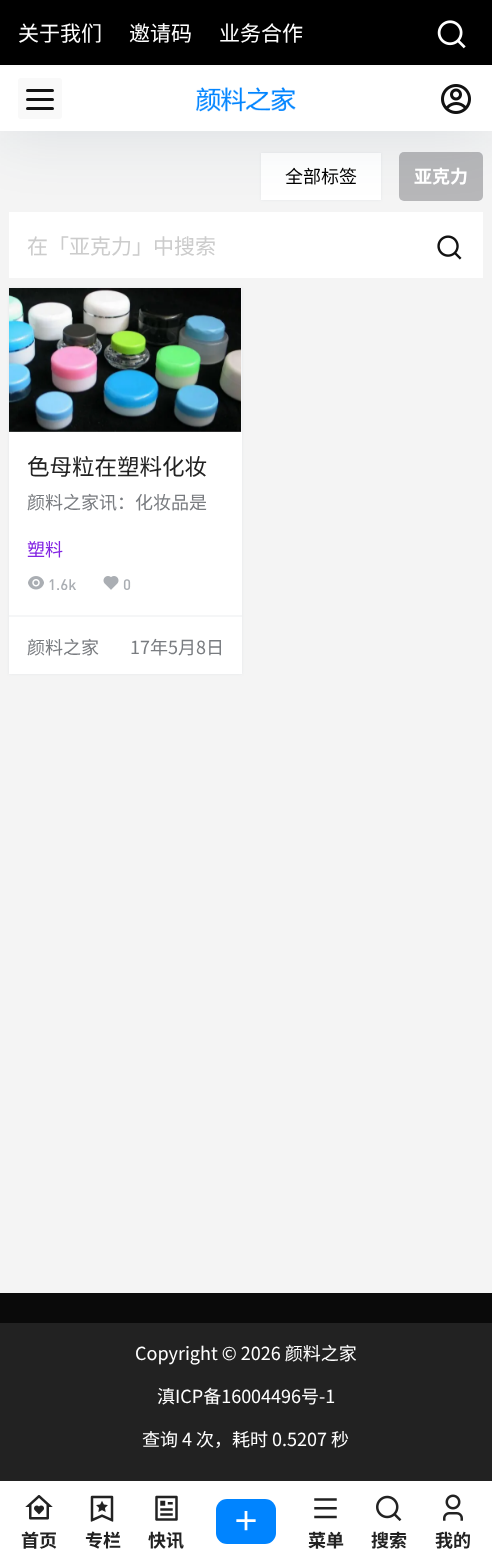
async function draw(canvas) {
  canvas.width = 492
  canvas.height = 1563
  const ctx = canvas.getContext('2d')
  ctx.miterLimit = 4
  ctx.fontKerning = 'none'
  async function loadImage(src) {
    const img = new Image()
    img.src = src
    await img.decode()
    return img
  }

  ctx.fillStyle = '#f4f4f4'
  ctx.fillRect(0, 0, 492, 1563)
  ctx.fillStyle = '#627c991a'
  ctx.filter = 'blur(1.5px)'
  ctx.beginPath()
  ctx.rect(261, 153, 120, 47)
  ctx.fill()
  ctx.filter = 'none'
  ctx.fillStyle = '#fff'
  ctx.fillRect(261, 153, 120, 47)
  ctx.drawImage(await loadImage('image3.png'), 399, 152, 84, 49)
  ctx.fillStyle = '#b7b7b9'
  ctx.beginPath()
  ctx.roundRect(399, 152, 84, 49, 5)
  ctx.fill()
  ctx.fillStyle = '#fff'
  ctx.fillRect(9, 212, 474, 66)
  ctx.fillStyle = '#113a5d1a'
  ctx.filter = 'blur(30px)'
  ctx.beginPath()
  ctx.rect(0, 8, 492, 130)
  ctx.fill()
  ctx.filter = 'none'
  ctx.fillStyle = '#000'
  ctx.fillRect(0, 0, 492, 65)
  ctx.font = '21px Noto Sans CJK SC'
  ctx.fillStyle = '#fff'
  ctx.fillText('关于我们', 18, 41)
  ctx.fillText('邀请码', 129, 41)
  ctx.fillText('业务合作', 219, 41)
  ctx.drawImage(await loadImage('image0.png'), 437, 20, 29, 29)
  ctx.fillRect(0, 67, 492, 64)
  ctx.fillStyle = '#fcfcfc'
  ctx.fillRect(0, 65, 492, 2)
  ctx.fillStyle = '#f9f9f9'
  ctx.beginPath()
  ctx.roundRect(18, 78, 44, 41, 3)
  ctx.fill()
  ctx.fillStyle = '#121212'
  ctx.beginPath()
  ctx.roundRect(26, 89, 28, 3, 1.5)
  ctx.fill()
  ctx.beginPath()
  ctx.roundRect(26, 98, 28, 3, 1.5)
  ctx.fill()
  ctx.beginPath()
  ctx.roundRect(26, 107, 28, 3, 1.5)
  ctx.fill()
  ctx.drawImage(await loadImage('image1.png'), 196, 87, 100, 25)
  ctx.drawImage(await loadImage('image2.png'), 441, 84, 30, 30)
  ctx.font = '18px Noto Sans CJK SC'
  ctx.fillStyle = '#000'
  ctx.fillText('全部标签', 285, 183)
  ctx.font = 'bold 18px Noto Sans CJK SC'
  ctx.fillStyle = '#fff'
  ctx.fillText('亚克力', 414, 183)
  ctx.font = '21px Noto Sans CJK SC'
  ctx.fillStyle = '#ccc'
  ctx.fillText('在「亚克力」中搜索', 27, 254)
  ctx.drawImage(await loadImage('image4.png'), 437, 235, 25, 25)
  ctx.fillStyle = '#627c991a'
  ctx.filter = 'blur(1.5px)'
  ctx.beginPath()
  ctx.rect(9, 288, 233, 386)
  ctx.fill()
  ctx.filter = 'none'
  ctx.fillStyle = '#fff'
  ctx.fillRect(9, 432, 233, 242)
  ctx.fillStyle = '#f5f6f7'
  ctx.fillRect(9, 288, 233, 144)
  ctx.drawImage(await loadImage('image5.png'), 9, 288, 232, 144)
  ctx.font = '22.5px Noto Sans CJK SC'
  ctx.fillStyle = '#222'
  ctx.fillText('色母粒在塑料化妆', 27, 475)
  ctx.font = '18px Noto Sans CJK SC'
  ctx.fillStyle = '#797c80'
  ctx.fillText('颜料之家讯：化妆品是', 27, 509)
  ctx.fillStyle = '#8224e3'
  ctx.fillText('塑料', 27, 556)
  ctx.drawImage(await loadImage('image6.png'), 28, 576, 16, 14)
  ctx.font = '500 15px DIN'
  ctx.fillStyle = '#aaaeb3'
  ctx.fillText('1.6k', 48, 590)
  ctx.drawImage(await loadImage('image7.png'), 103, 576, 16, 14)
  ctx.fillText('0', 123, 590)
  ctx.fillStyle = '#f5f6f7'
  ctx.fillRect(9, 615, 233, 2)
  ctx.font = '18px Noto Sans CJK SC'
  ctx.fillStyle = '#797c80'
  ctx.fillText('颜料之家', 27, 654)
  ctx.fillText('17年5月8日', 130, 654)
  ctx.fillStyle = '#0a0a0a'
  ctx.fillRect(0, 1293, 492, 30)
  ctx.fillStyle = '#222'
  ctx.fillRect(0, 1323, 492, 158)
  ctx.fillStyle = '#fff'
  ctx.fillText('Copyright © 2026 颜料之家', 135, 1360)
  ctx.fillText('滇ICP备16004496号-1', 157, 1403)
  ctx.fillText('查询 4 次，耗时 0.5207 秒', 142, 1446)
  ctx.fillRect(0, 1481, 492, 82)
  ctx.drawImage(await loadImage('image8.png'), 25, 1495, 28, 25)
  ctx.font = 'bold 18px Noto Sans CJK SC'
  ctx.fillStyle = '#222'
  ctx.fillText('首页', 21, 1547)
  ctx.drawImage(await loadImage('image9.png'), 90, 1495, 24, 27)
  ctx.fillText('专栏', 85, 1547)
  ctx.drawImage(await loadImage('image10.png'), 155, 1495, 23, 26)
  ctx.fillText('快讯', 148, 1547)
  ctx.fillStyle = '#0084ff'
  ctx.beginPath()
  ctx.roundRect(216, 1499, 60, 45, 11)
  ctx.fill()
  ctx.drawImage(await loadImage('image11.png'), 236, 1511, 20, 20)
  ctx.drawImage(await loadImage('image12.png'), 314, 1498, 23, 21)
  ctx.fillStyle = '#222'
  ctx.fillText('菜单', 308, 1547)
  ctx.drawImage(await loadImage('image13.png'), 376, 1495, 26, 26)
  ctx.fillText('搜索', 371, 1547)
  ctx.drawImage(await loadImage('image14.png'), 443, 1494, 20, 27)
  ctx.fillText('我的', 435, 1547)
}

draw(document.querySelector('canvas'))
